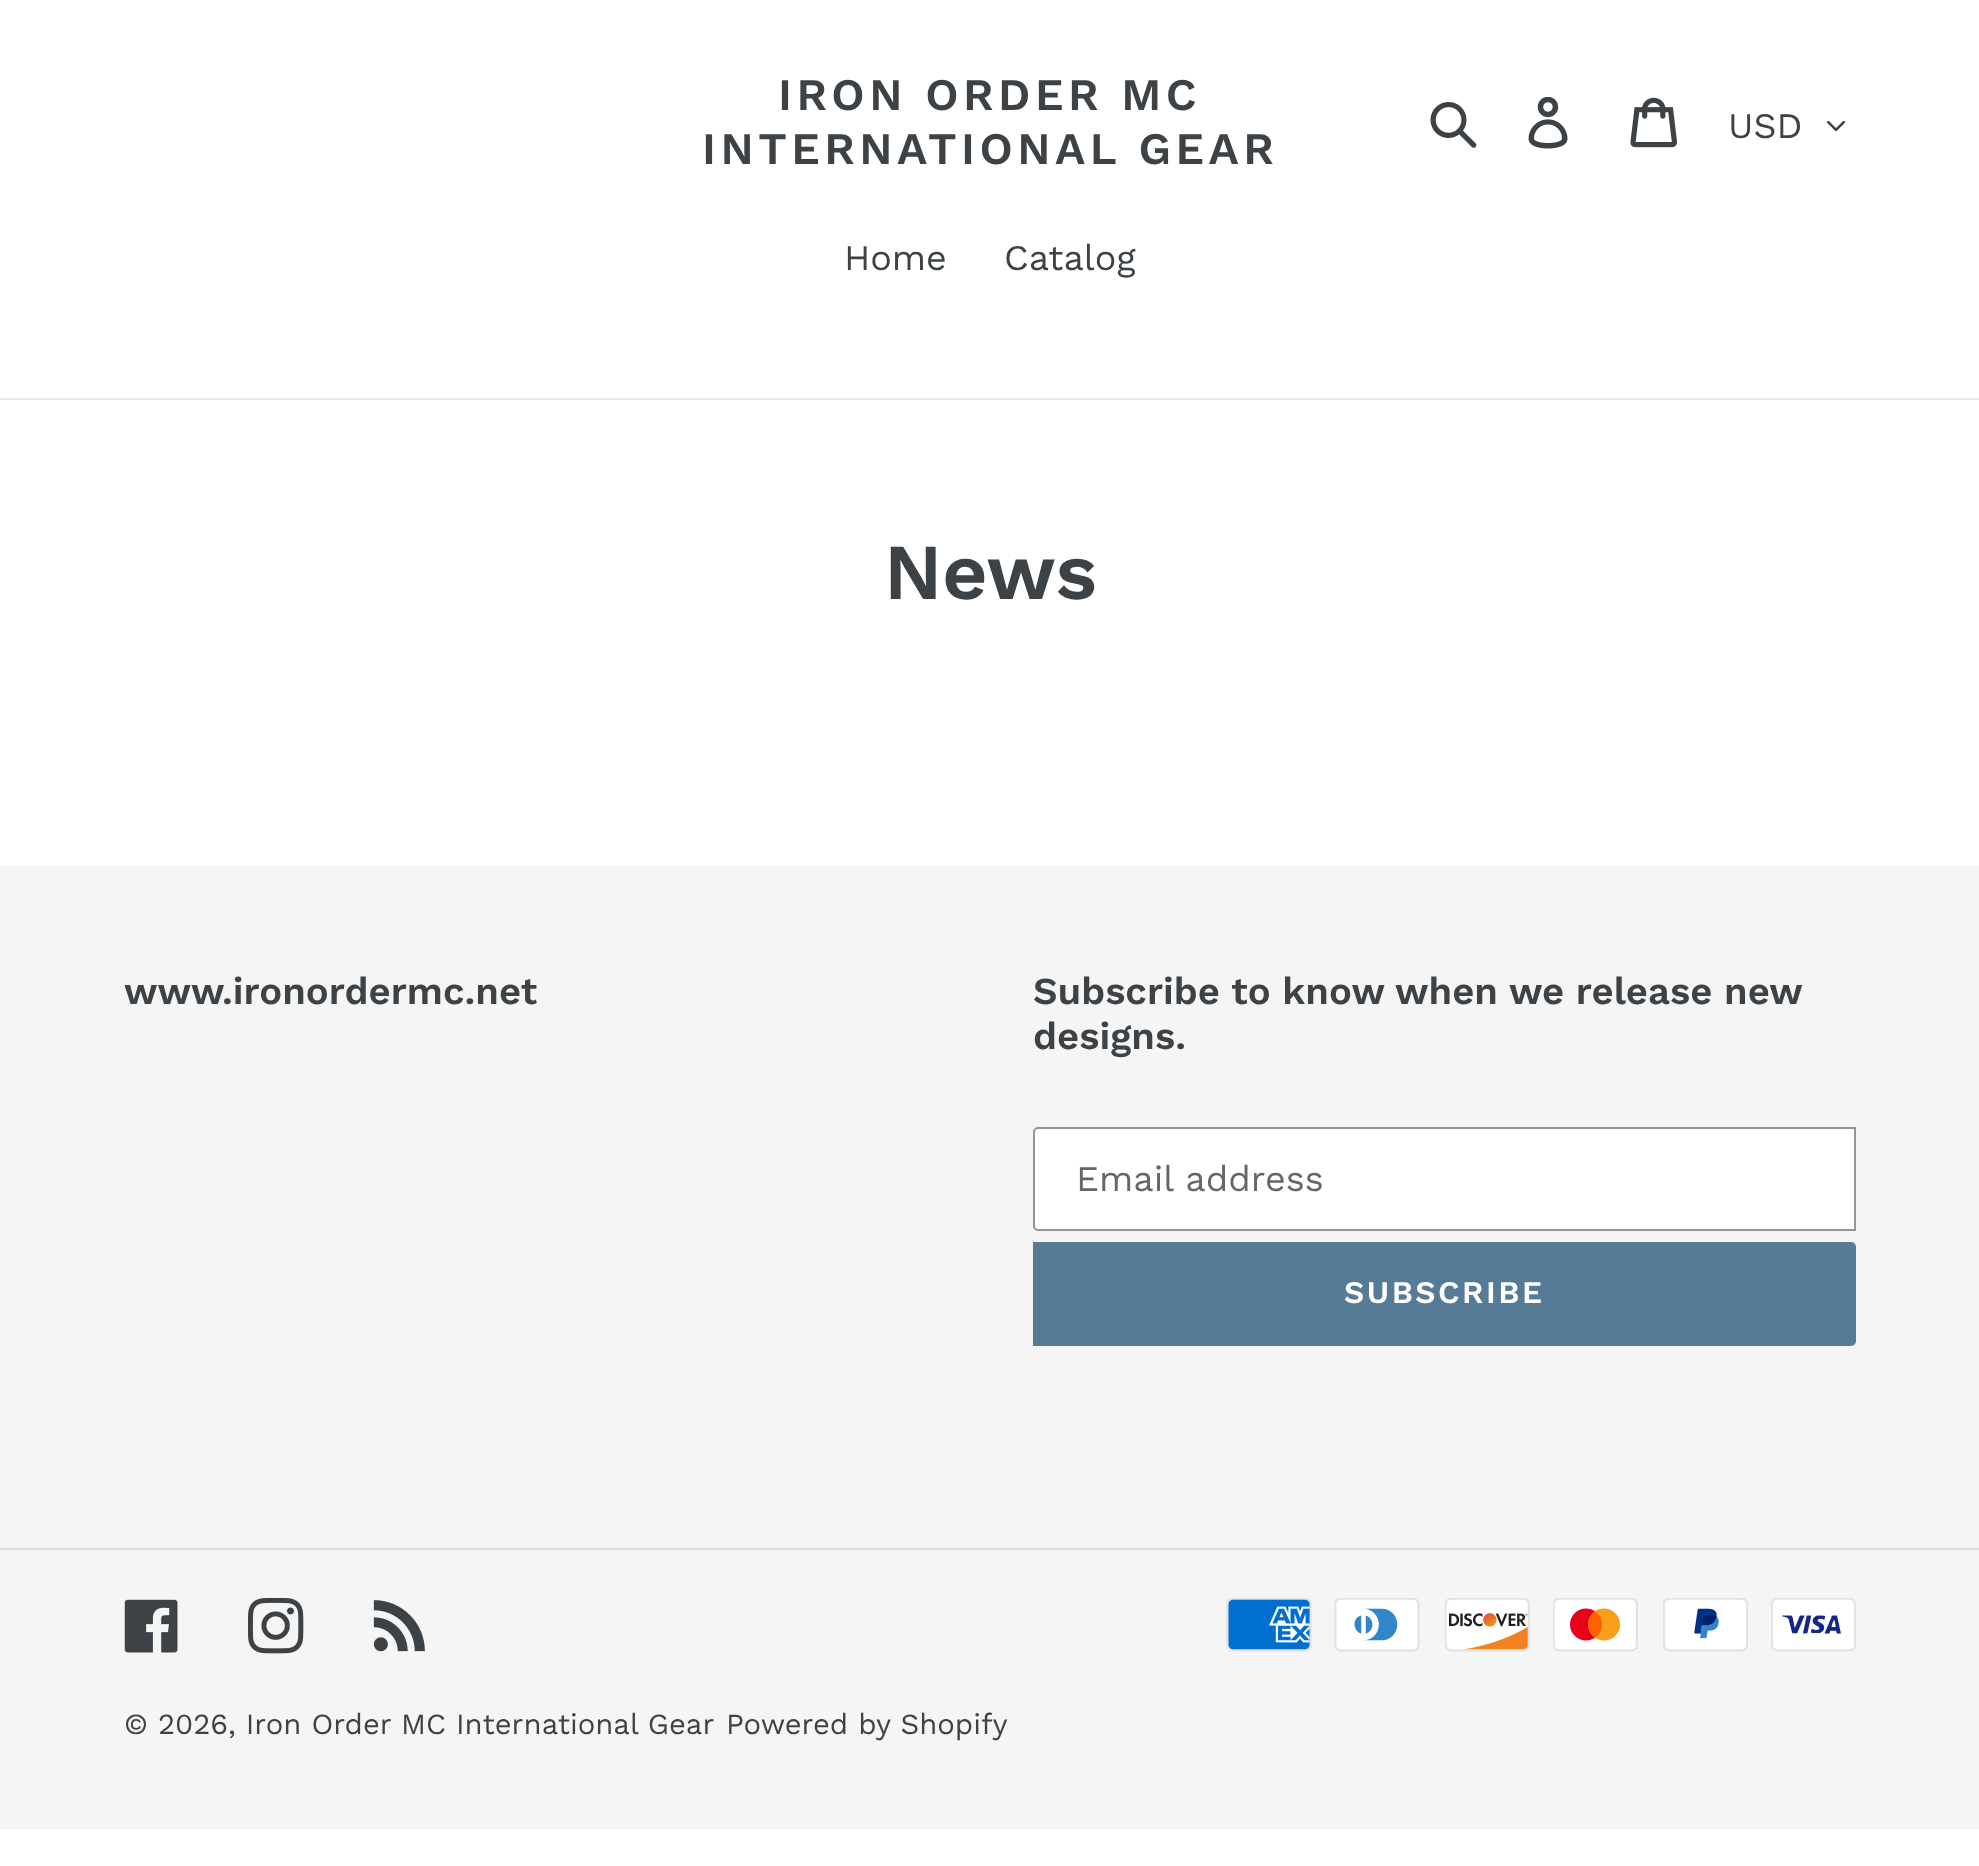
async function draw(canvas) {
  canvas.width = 1979
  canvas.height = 1866
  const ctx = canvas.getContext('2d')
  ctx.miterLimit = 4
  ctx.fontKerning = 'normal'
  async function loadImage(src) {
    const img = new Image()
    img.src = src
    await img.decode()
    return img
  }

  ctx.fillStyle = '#fff'
  ctx.fillRect(0, 0, 1979, 1866)
  ctx.letterSpacing = '4.5px'
  ctx.font = '600 45px Work Sans'
  ctx.fillStyle = '#3d4246'
  ctx.fillText('IRON ORDER MC', 778, 110)
  ctx.fillText('INTERNATIONAL GEAR', 702, 164)
  ctx.drawImage(await loadImage('image0.png'), 1430, 102, 47, 46)
  ctx.drawImage(await loadImage('image1.png'), 1528, 97, 40, 52)
  ctx.drawImage(await loadImage('image2.png'), 1630, 97, 48, 51)
  ctx.letterSpacing = '0px'
  ctx.font = '36px Work Sans'
  ctx.fillText('USD', 1728, 138)
  ctx.drawImage(await loadImage('image3.png'), 1827, 120, 18, 12)
  ctx.fillStyle = '#e8e9eb'
  ctx.fillRect(0, 398, 1979, 2)
  ctx.fillStyle = '#3d4246'
  ctx.fillText('Home', 844, 270)
  ctx.fillText('Catalog', 1004, 270)
  ctx.font = '600 79px Work Sans'
  ctx.fillText('News', 884, 599)
  ctx.fillStyle = '#f5f5f5'
  ctx.fillRect(0, 866, 1979, 963)
  ctx.font = '600 38.25px Work Sans'
  ctx.fillStyle = '#3d4246'
  ctx.fillText('www.ironordermc.net', 124, 1004)
  ctx.fillText('Subscribe to know when we release new', 1033, 1004)
  ctx.fillText('designs.', 1033, 1049)
  ctx.fillStyle = '#fff'
  ctx.beginPath()
  ctx.roundRect(1034, 1128, 821, 102, [4, 0, 0, 4])
  ctx.fill()
  ctx.strokeStyle = '#949494'
  ctx.lineWidth = 2
  ctx.stroke()
  ctx.font = '36px Work Sans'
  ctx.fillStyle = '#666'
  ctx.fillText('Email address', 1076, 1191)
  ctx.fillStyle = '#557b97'
  ctx.beginPath()
  ctx.roundRect(1033, 1242, 823, 104, [0, 5, 5, 0])
  ctx.fill()
  ctx.letterSpacing = '2.5px'
  ctx.font = '600 31.5px Work Sans'
  ctx.fillStyle = '#fff'
  ctx.fillText('SUBSCRIBE', 1344, 1303)
  ctx.fillStyle = '#dcdcdc'
  ctx.fillRect(0, 1548, 1979, 2)
  ctx.drawImage(await loadImage('image4.png'), 124, 1599, 54, 54)
  ctx.drawImage(await loadImage('image5.png'), 248, 1598, 56, 56)
  ctx.drawImage(await loadImage('image6.png'), 373, 1600, 52, 52)
  ctx.drawImage(await loadImage('image7.png'), 1226, 1598, 86, 54)
  ctx.drawImage(await loadImage('image8.png'), 1334, 1598, 86, 54)
  ctx.drawImage(await loadImage('image9.png'), 1445, 1598, 85, 54)
  ctx.drawImage(await loadImage('image10.png'), 1553, 1598, 85, 54)
  ctx.drawImage(await loadImage('image11.png'), 1663, 1598, 85, 54)
  ctx.drawImage(await loadImage('image12.png'), 1771, 1598, 85, 54)
  ctx.letterSpacing = '0px'
  ctx.font = '29.25px Work Sans'
  ctx.fillStyle = '#3d4246'
  ctx.fillText('© 2026, Iron Order MC International Gear', 124, 1734)
  ctx.fillText('Powered by Shopify', 726, 1734)
}

draw(document.querySelector('canvas'))
